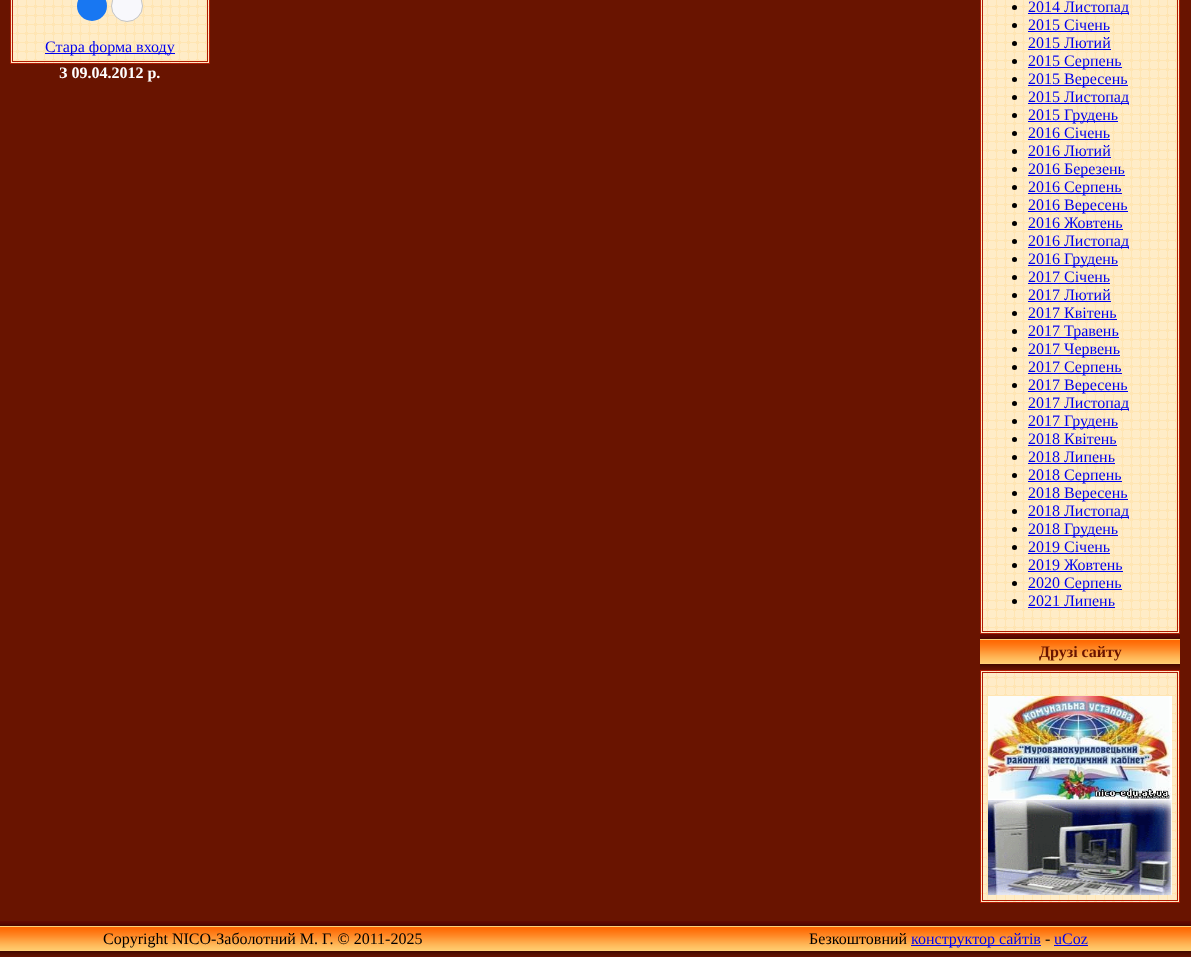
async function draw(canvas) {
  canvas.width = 1191
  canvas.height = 957
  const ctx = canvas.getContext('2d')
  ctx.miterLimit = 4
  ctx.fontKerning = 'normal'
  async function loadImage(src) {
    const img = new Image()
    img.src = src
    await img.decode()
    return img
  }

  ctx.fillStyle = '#691400'
  ctx.fillRect(0, 0, 1191, 957)
  ctx.drawImage(await loadImage('image0.png'), 11, 0, 198, 63)
  ctx.strokeStyle = '#b21b04'
  ctx.strokeRect(10.5, -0.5, 199, 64)
  ctx.strokeRect(12.5, -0.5, 195, 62)
  ctx.fillStyle = '#1877f2'
  ctx.beginPath()
  ctx.arc(92, 6, 15, 0, 2 * Math.PI)
  ctx.fill()
  ctx.fillStyle = '#f8f8fc'
  ctx.beginPath()
  ctx.arc(127, 6, 15.5, 0, 2 * Math.PI)
  ctx.fill()
  ctx.strokeStyle = '#c4c4c4'
  ctx.stroke()
  ctx.fillStyle = '#00e'
  ctx.fillRect(45, 53, 130, 1)
  ctx.font = '16px Liberation Serif'
  ctx.fillText('Стара форма входу', 45, 52)
  ctx.font = 'bold 16px Liberation Serif'
  ctx.fillStyle = '#fff'
  ctx.fillText('З 09.04.2012 р.', 59, 78)
  ctx.drawImage(await loadImage('image1.png'), 981, 0, 198, 633)
  ctx.strokeStyle = '#b21b04'
  ctx.strokeRect(980.5, -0.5, 199, 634)
  ctx.strokeRect(982.5, -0.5, 195, 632)
  ctx.fillStyle = '#000'
  ctx.beginPath()
  ctx.arc(1014.5, 7.5, 2.5, 0, 2 * Math.PI)
  ctx.fill()
  ctx.fillStyle = '#00e'
  ctx.fillRect(1028, 13, 101, 1)
  ctx.font = '16px Liberation Serif'
  ctx.fillText('2014 Листопад', 1028, 12)
  ctx.fillStyle = '#000'
  ctx.beginPath()
  ctx.arc(1014.5, 25.5, 2.5, 0, 2 * Math.PI)
  ctx.fill()
  ctx.fillStyle = '#00e'
  ctx.fillText('2015 Січень', 1028, 30)
  ctx.fillRect(1028, 31, 82, 1)
  ctx.fillStyle = '#000'
  ctx.beginPath()
  ctx.arc(1014.5, 43.5, 2.5, 0, 2 * Math.PI)
  ctx.fill()
  ctx.fillStyle = '#00e'
  ctx.fillText('2015 Лютий', 1028, 48)
  ctx.fillRect(1028, 49, 83, 1)
  ctx.fillStyle = '#000'
  ctx.beginPath()
  ctx.arc(1014.5, 61.5, 2.5, 0, 2 * Math.PI)
  ctx.fill()
  ctx.fillStyle = '#00e'
  ctx.fillRect(1028, 67, 94, 1)
  ctx.fillText('2015 Серпень', 1028, 66)
  ctx.fillStyle = '#000'
  ctx.beginPath()
  ctx.arc(1014.5, 79.5, 2.5, 0, 2 * Math.PI)
  ctx.fill()
  ctx.fillStyle = '#00e'
  ctx.fillRect(1028, 85, 100, 1)
  ctx.fillText('2015 Вересень', 1028, 84)
  ctx.fillStyle = '#000'
  ctx.beginPath()
  ctx.arc(1014.5, 97.5, 2.5, 0, 2 * Math.PI)
  ctx.fill()
  ctx.fillStyle = '#00e'
  ctx.fillRect(1028, 103, 101, 1)
  ctx.fillText('2015 Листопад', 1028, 102)
  ctx.fillStyle = '#000'
  ctx.beginPath()
  ctx.arc(1014.5, 115.5, 2.5, 0, 2 * Math.PI)
  ctx.fill()
  ctx.fillStyle = '#00e'
  ctx.fillRect(1028, 121, 90, 1)
  ctx.fillText('2015 Грудень', 1028, 120)
  ctx.fillStyle = '#000'
  ctx.beginPath()
  ctx.arc(1014.5, 133.5, 2.5, 0, 2 * Math.PI)
  ctx.fill()
  ctx.fillStyle = '#00e'
  ctx.fillText('2016 Січень', 1028, 138)
  ctx.fillRect(1028, 139, 82, 1)
  ctx.fillStyle = '#000'
  ctx.beginPath()
  ctx.arc(1014.5, 151.5, 2.5, 0, 2 * Math.PI)
  ctx.fill()
  ctx.fillStyle = '#00e'
  ctx.fillText('2016 Лютий', 1028, 156)
  ctx.fillRect(1028, 157, 83, 1)
  ctx.fillStyle = '#000'
  ctx.beginPath()
  ctx.arc(1014.5, 169.5, 2.5, 0, 2 * Math.PI)
  ctx.fill()
  ctx.fillStyle = '#00e'
  ctx.fillRect(1028, 175, 97, 1)
  ctx.fillText('2016 Березень', 1028, 174)
  ctx.fillStyle = '#000'
  ctx.beginPath()
  ctx.arc(1014.5, 187.5, 2.5, 0, 2 * Math.PI)
  ctx.fill()
  ctx.fillStyle = '#00e'
  ctx.fillRect(1028, 193, 94, 1)
  ctx.fillText('2016 Серпень', 1028, 192)
  ctx.fillStyle = '#000'
  ctx.beginPath()
  ctx.arc(1014.5, 205.5, 2.5, 0, 2 * Math.PI)
  ctx.fill()
  ctx.fillStyle = '#00e'
  ctx.fillRect(1028, 211, 100, 1)
  ctx.fillText('2016 Вересень', 1028, 210)
  ctx.fillStyle = '#000'
  ctx.beginPath()
  ctx.arc(1014.5, 223.5, 2.5, 0, 2 * Math.PI)
  ctx.fill()
  ctx.fillStyle = '#00e'
  ctx.fillText('2016 Жовтень', 1028, 228)
  ctx.fillRect(1028, 229, 95, 1)
  ctx.fillStyle = '#000'
  ctx.beginPath()
  ctx.arc(1014.5, 241.5, 2.5, 0, 2 * Math.PI)
  ctx.fill()
  ctx.fillStyle = '#00e'
  ctx.fillRect(1028, 247, 101, 1)
  ctx.fillText('2016 Листопад', 1028, 246)
  ctx.fillStyle = '#000'
  ctx.beginPath()
  ctx.arc(1014.5, 259.5, 2.5, 0, 2 * Math.PI)
  ctx.fill()
  ctx.fillStyle = '#00e'
  ctx.fillRect(1028, 265, 90, 1)
  ctx.fillText('2016 Грудень', 1028, 264)
  ctx.fillStyle = '#000'
  ctx.beginPath()
  ctx.arc(1014.5, 277.5, 2.5, 0, 2 * Math.PI)
  ctx.fill()
  ctx.fillStyle = '#00e'
  ctx.fillText('2017 Січень', 1028, 282)
  ctx.fillRect(1028, 283, 82, 1)
  ctx.fillStyle = '#000'
  ctx.beginPath()
  ctx.arc(1014.5, 295.5, 2.5, 0, 2 * Math.PI)
  ctx.fill()
  ctx.fillStyle = '#00e'
  ctx.fillText('2017 Лютий', 1028, 300)
  ctx.fillRect(1028, 301, 83, 1)
  ctx.fillStyle = '#000'
  ctx.beginPath()
  ctx.arc(1014.5, 313.5, 2.5, 0, 2 * Math.PI)
  ctx.fill()
  ctx.fillStyle = '#00e'
  ctx.fillText('2017 Квітень', 1028, 318)
  ctx.fillRect(1028, 319, 89, 1)
  ctx.fillStyle = '#000'
  ctx.beginPath()
  ctx.arc(1014.5, 331.5, 2.5, 0, 2 * Math.PI)
  ctx.fill()
  ctx.fillStyle = '#00e'
  ctx.fillRect(1028, 337, 91, 1)
  ctx.fillText('2017 Травень', 1028, 336)
  ctx.fillStyle = '#000'
  ctx.beginPath()
  ctx.arc(1014.5, 349.5, 2.5, 0, 2 * Math.PI)
  ctx.fill()
  ctx.fillStyle = '#00e'
  ctx.fillRect(1028, 355, 92, 1)
  ctx.fillText('2017 Червень', 1028, 354)
  ctx.fillStyle = '#000'
  ctx.beginPath()
  ctx.arc(1014.5, 367.5, 2.5, 0, 2 * Math.PI)
  ctx.fill()
  ctx.fillStyle = '#00e'
  ctx.fillRect(1028, 373, 94, 1)
  ctx.fillText('2017 Серпень', 1028, 372)
  ctx.fillStyle = '#000'
  ctx.beginPath()
  ctx.arc(1014.5, 385.5, 2.5, 0, 2 * Math.PI)
  ctx.fill()
  ctx.fillStyle = '#00e'
  ctx.fillRect(1028, 391, 100, 1)
  ctx.fillText('2017 Вересень', 1028, 390)
  ctx.fillStyle = '#000'
  ctx.beginPath()
  ctx.arc(1014.5, 403.5, 2.5, 0, 2 * Math.PI)
  ctx.fill()
  ctx.fillStyle = '#00e'
  ctx.fillRect(1028, 409, 101, 1)
  ctx.fillText('2017 Листопад', 1028, 408)
  ctx.fillStyle = '#000'
  ctx.beginPath()
  ctx.arc(1014.5, 421.5, 2.5, 0, 2 * Math.PI)
  ctx.fill()
  ctx.fillStyle = '#00e'
  ctx.fillRect(1028, 427, 90, 1)
  ctx.fillText('2017 Грудень', 1028, 426)
  ctx.fillStyle = '#000'
  ctx.beginPath()
  ctx.arc(1014.5, 439.5, 2.5, 0, 2 * Math.PI)
  ctx.fill()
  ctx.fillStyle = '#00e'
  ctx.fillText('2018 Квітень', 1028, 444)
  ctx.fillRect(1028, 445, 89, 1)
  ctx.fillStyle = '#000'
  ctx.beginPath()
  ctx.arc(1014.5, 457.5, 2.5, 0, 2 * Math.PI)
  ctx.fill()
  ctx.fillStyle = '#00e'
  ctx.fillText('2018 Липень', 1028, 462)
  ctx.fillRect(1028, 463, 87, 1)
  ctx.fillStyle = '#000'
  ctx.beginPath()
  ctx.arc(1014.5, 475.5, 2.5, 0, 2 * Math.PI)
  ctx.fill()
  ctx.fillStyle = '#00e'
  ctx.fillRect(1028, 481, 94, 1)
  ctx.fillText('2018 Серпень', 1028, 480)
  ctx.fillStyle = '#000'
  ctx.beginPath()
  ctx.arc(1014.5, 493.5, 2.5, 0, 2 * Math.PI)
  ctx.fill()
  ctx.fillStyle = '#00e'
  ctx.fillRect(1028, 499, 100, 1)
  ctx.fillText('2018 Вересень', 1028, 498)
  ctx.fillStyle = '#000'
  ctx.beginPath()
  ctx.arc(1014.5, 511.5, 2.5, 0, 2 * Math.PI)
  ctx.fill()
  ctx.fillStyle = '#00e'
  ctx.fillRect(1028, 517, 101, 1)
  ctx.fillText('2018 Листопад', 1028, 516)
  ctx.fillStyle = '#000'
  ctx.beginPath()
  ctx.arc(1014.5, 529.5, 2.5, 0, 2 * Math.PI)
  ctx.fill()
  ctx.fillStyle = '#00e'
  ctx.fillRect(1028, 535, 90, 1)
  ctx.fillText('2018 Грудень', 1028, 534)
  ctx.fillStyle = '#000'
  ctx.beginPath()
  ctx.arc(1014.5, 547.5, 2.5, 0, 2 * Math.PI)
  ctx.fill()
  ctx.fillStyle = '#00e'
  ctx.fillText('2019 Січень', 1028, 552)
  ctx.fillRect(1028, 553, 82, 1)
  ctx.fillStyle = '#000'
  ctx.beginPath()
  ctx.arc(1014.5, 565.5, 2.5, 0, 2 * Math.PI)
  ctx.fill()
  ctx.fillStyle = '#00e'
  ctx.fillText('2019 Жовтень', 1028, 570)
  ctx.fillRect(1028, 571, 95, 1)
  ctx.fillStyle = '#000'
  ctx.beginPath()
  ctx.arc(1014.5, 583.5, 2.5, 0, 2 * Math.PI)
  ctx.fill()
  ctx.fillStyle = '#00e'
  ctx.fillRect(1028, 589, 94, 1)
  ctx.fillText('2020 Серпень', 1028, 588)
  ctx.fillStyle = '#000'
  ctx.beginPath()
  ctx.arc(1014.5, 601.5, 2.5, 0, 2 * Math.PI)
  ctx.fill()
  ctx.fillStyle = '#00e'
  ctx.fillText('2021 Липень', 1028, 606)
  ctx.fillRect(1028, 607, 87, 1)
  ctx.drawImage(await loadImage('image2.png'), 980, 634, 200, 36)
  ctx.font = 'bold 16px Liberation Serif'
  ctx.fillStyle = '#691400'
  ctx.fillText('Друзі сайту', 1039, 657)
  ctx.drawImage(await loadImage('image3.png'), 981, 671, 198, 231)
  ctx.strokeRect(980.5, 670.5, 199, 232)
  ctx.strokeRect(982.5, 672.5, 195, 228)
  ctx.drawImage(await loadImage('image4.png'), 988, 696, 184, 104)
  ctx.drawImage(await loadImage('image5.png'), 988, 800, 184, 95)
  ctx.drawImage(await loadImage('image6.png'), 0, 921, 1191, 36)
  ctx.font = '16px Liberation Serif'
  ctx.fillStyle = '#000'
  ctx.fillText('Copyright NICO-Заболотний М. Г. © 2011-2025', 103, 944)
  ctx.fillText('Безкоштовний', 809, 944)
  ctx.fillStyle = '#00e'
  ctx.fillRect(911, 945, 130, 1)
  ctx.fillText('конструктор сайтів', 911, 944)
  ctx.fillStyle = '#000'
  ctx.fillText('-', 1045, 944)
  ctx.fillStyle = '#00e'
  ctx.fillText('uCoz', 1054, 944)
  ctx.fillRect(1054, 945, 34, 1)
}

draw(document.querySelector('canvas'))
